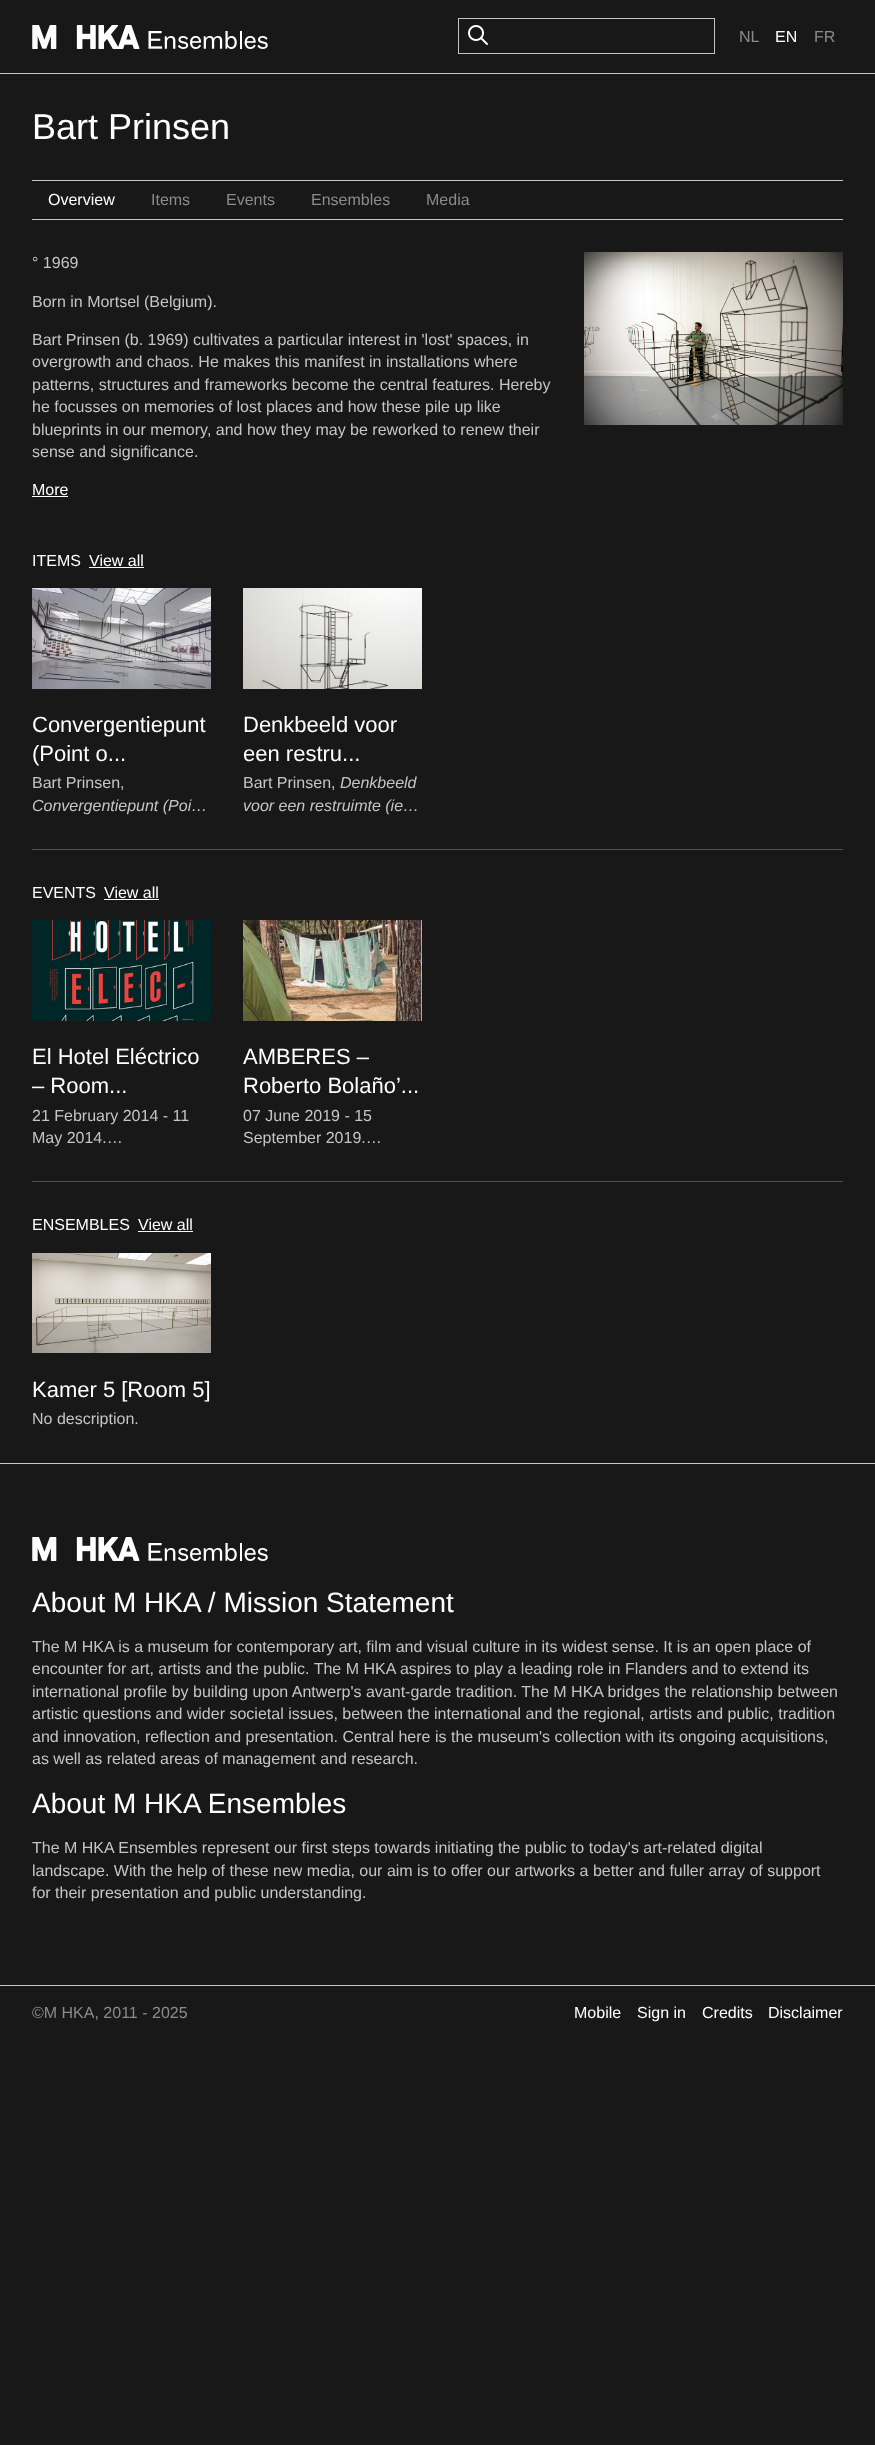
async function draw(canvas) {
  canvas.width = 875
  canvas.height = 2445
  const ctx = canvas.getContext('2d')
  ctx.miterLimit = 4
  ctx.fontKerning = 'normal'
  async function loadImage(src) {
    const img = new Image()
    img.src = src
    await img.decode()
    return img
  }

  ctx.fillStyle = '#181818'
  ctx.fillRect(0, 0, 875, 2445)
  ctx.fillStyle = '#c5c5c5'
  ctx.fillRect(0, 73, 875, 1)
  ctx.drawImage(await loadImage('image0.png'), 32, 25, 236, 24)
  ctx.strokeStyle = '#c5c5c5'
  ctx.strokeRect(458.5, 18.5, 256, 35)
  ctx.drawImage(await loadImage('image1.png'), 468, 25, 20, 20)
  ctx.font = '16px Liberation Sans'
  ctx.fillStyle = '#8b8b8b'
  ctx.fillText('NL', 739, 42)
  ctx.fillStyle = '#fff'
  ctx.fillText('EN', 775, 42)
  ctx.fillStyle = '#8b8b8b'
  ctx.fillText('FR', 814, 42)
  ctx.font = '36px Liberation Sans'
  ctx.fillStyle = '#fff'
  ctx.fillText('Bart Prinsen', 32, 139)
  ctx.fillStyle = '#c5c5c5'
  ctx.fillRect(32, 180, 811, 1)
  ctx.fillRect(32, 219, 811, 1)
  ctx.font = '16px Liberation Sans'
  ctx.fillStyle = '#fff'
  ctx.fillText('Overview', 48, 205)
  ctx.fillStyle = '#8b8b8b'
  ctx.fillText('Items', 151, 205)
  ctx.fillText('Events', 226, 205)
  ctx.fillText('Ensembles', 311, 205)
  ctx.fillText('Media', 426, 205)
  ctx.fillStyle = '#c5c5c5'
  ctx.fillText('° 1969', 32, 268)
  ctx.fillText('Born in Mortsel (Belgium).', 32, 307)
  ctx.fillText('Bart Prinsen (b. 1969) cultivates a particular interest in \'lost\' spaces, in', 32, 345)
  ctx.fillText('overgrowth and chaos. He makes this manifest in installations where', 32, 367)
  ctx.fillText('patterns, structures and frameworks become the central features. Hereby', 32, 390)
  ctx.fillText('he focusses on memories of lost places and how these pile up like', 32, 412)
  ctx.fillText('blueprints in our memory, and how they may be reworked to renew their', 32, 435)
  ctx.fillText('sense and significance.', 32, 457)
  ctx.fillStyle = '#fff'
  ctx.fillText('More', 32, 495)
  ctx.fillRect(32, 496, 36, 1)
  ctx.drawImage(await loadImage('image2.png'), 584, 252, 259, 173)
  ctx.fillStyle = '#525252'
  ctx.fillRect(32, 849, 811, 1)
  ctx.fillStyle = '#fff'
  ctx.fillText('ITEMS', 32, 566)
  ctx.fillText('View all', 89, 566)
  ctx.fillRect(89, 567, 55, 1)
  ctx.drawImage(await loadImage('image3.png'), 32, 588, 179, 101)
  ctx.font = '22px Liberation Sans'
  ctx.fillText('Convergentiepunt', 32, 732)
  ctx.fillText('(Point o...', 32, 761)
  ctx.font = '16px Liberation Sans'
  ctx.fillStyle = '#c5c5c5'
  ctx.fillText('Bart Prinsen,', 32, 788)
  ctx.font = 'italic 16px Liberation Sans'
  ctx.fillText('Convergentiepunt (Poi…', 32, 811)
  ctx.drawImage(await loadImage('image4.png'), 243, 588, 179, 101)
  ctx.font = '22px Liberation Sans'
  ctx.fillStyle = '#fff'
  ctx.fillText('Denkbeeld voor', 243, 732)
  ctx.fillText('een restru...', 243, 761)
  ctx.font = '16px Liberation Sans'
  ctx.fillStyle = '#c5c5c5'
  ctx.fillText('Bart Prinsen,', 243, 788)
  ctx.font = 'italic 16px Liberation Sans'
  ctx.fillText('Denkbeeld', 340, 788)
  ctx.fillText('voor een restruimte (ie…', 243, 811)
  ctx.fillStyle = '#525252'
  ctx.fillRect(32, 1181, 811, 1)
  ctx.font = '16px Liberation Sans'
  ctx.fillStyle = '#fff'
  ctx.fillText('EVENTS', 32, 898)
  ctx.fillText('View all', 104, 898)
  ctx.fillRect(104, 899, 55, 1)
  ctx.drawImage(await loadImage('image5.png'), 32, 920, 179, 101)
  ctx.font = '22px Liberation Sans'
  ctx.fillText('El Hotel Eléctrico', 32, 1064)
  ctx.fillText('– Room...', 32, 1093)
  ctx.font = '16px Liberation Sans'
  ctx.fillStyle = '#c5c5c5'
  ctx.fillText('21 February 2014 - 11', 32, 1121)
  ctx.fillText('May 2014.…', 32, 1143)
  ctx.drawImage(await loadImage('image6.png'), 243, 920, 179, 101)
  ctx.font = '22px Liberation Sans'
  ctx.fillStyle = '#fff'
  ctx.fillText('AMBERES –', 243, 1064)
  ctx.fillText('Roberto Bolaño’...', 243, 1093)
  ctx.font = '16px Liberation Sans'
  ctx.fillStyle = '#c5c5c5'
  ctx.fillText('07 June 2019 - 15', 243, 1121)
  ctx.fillText('September 2019.…', 243, 1143)
  ctx.fillStyle = '#fff'
  ctx.fillText('ENSEMBLES', 32, 1230)
  ctx.fillText('View all', 138, 1230)
  ctx.fillRect(138, 1231, 55, 1)
  ctx.drawImage(await loadImage('image7.png'), 32, 1253, 179, 100)
  ctx.font = '22px Liberation Sans'
  ctx.fillText('Kamer 5 [Room 5]', 32, 1397)
  ctx.font = '16px Liberation Sans'
  ctx.fillStyle = '#c5c5c5'
  ctx.fillText('No description.', 32, 1424)
  ctx.fillRect(0, 1463, 875, 1)
  ctx.drawImage(await loadImage('image0.png'), 32, 1537, 236, 24)
  ctx.font = '28px Liberation Sans'
  ctx.fillStyle = '#fff'
  ctx.fillText('About M HKA / Mission Statement', 32, 1612)
  ctx.font = '16px Liberation Sans'
  ctx.fillStyle = '#c5c5c5'
  ctx.fillText('The M HKA is a museum for contemporary art, film and visual culture in its widest sense. It is an open place of', 32, 1652)
  ctx.fillText('encounter for art, artists and the public. The M HKA aspires to play a leading role in Flanders and to extend its', 32, 1674)
  ctx.fillText('international profile by building upon Antwerp\'s avant-garde tradition. The M HKA bridges the relationship between', 32, 1697)
  ctx.fillText('artistic questions and wider societal issues, between the international and the regional, artists and public, tradition', 32, 1719)
  ctx.fillText('and innovation, reflection and presentation. Central here is the museum\'s collection with its ongoing acquisitions,', 32, 1742)
  ctx.fillText('as well as related areas of management and research.', 32, 1764)
  ctx.font = '28px Liberation Sans'
  ctx.fillStyle = '#fff'
  ctx.fillText('About M HKA Ensembles', 32, 1813)
  ctx.font = '16px Liberation Sans'
  ctx.fillStyle = '#c5c5c5'
  ctx.fillText('The M HKA Ensembles represent our first steps towards initiating the public to today\'s art-related digital', 32, 1853)
  ctx.fillText('landscape. With the help of these new media, our aim is to offer our artworks a better and fuller array of support', 32, 1876)
  ctx.fillText('for their presentation and public understanding.', 32, 1898)
  ctx.fillRect(0, 1985, 875, 1)
  ctx.fillStyle = '#8b8b8b'
  ctx.fillText('©M HKA, 2011 - 2025', 32, 2018)
  ctx.fillStyle = '#fff'
  ctx.fillText('Mobile', 574, 2018)
  ctx.fillText('Sign in', 637, 2018)
  ctx.fillText('Credits', 702, 2018)
  ctx.fillText('Disclaimer', 768, 2018)
}

draw(document.querySelector('canvas'))
